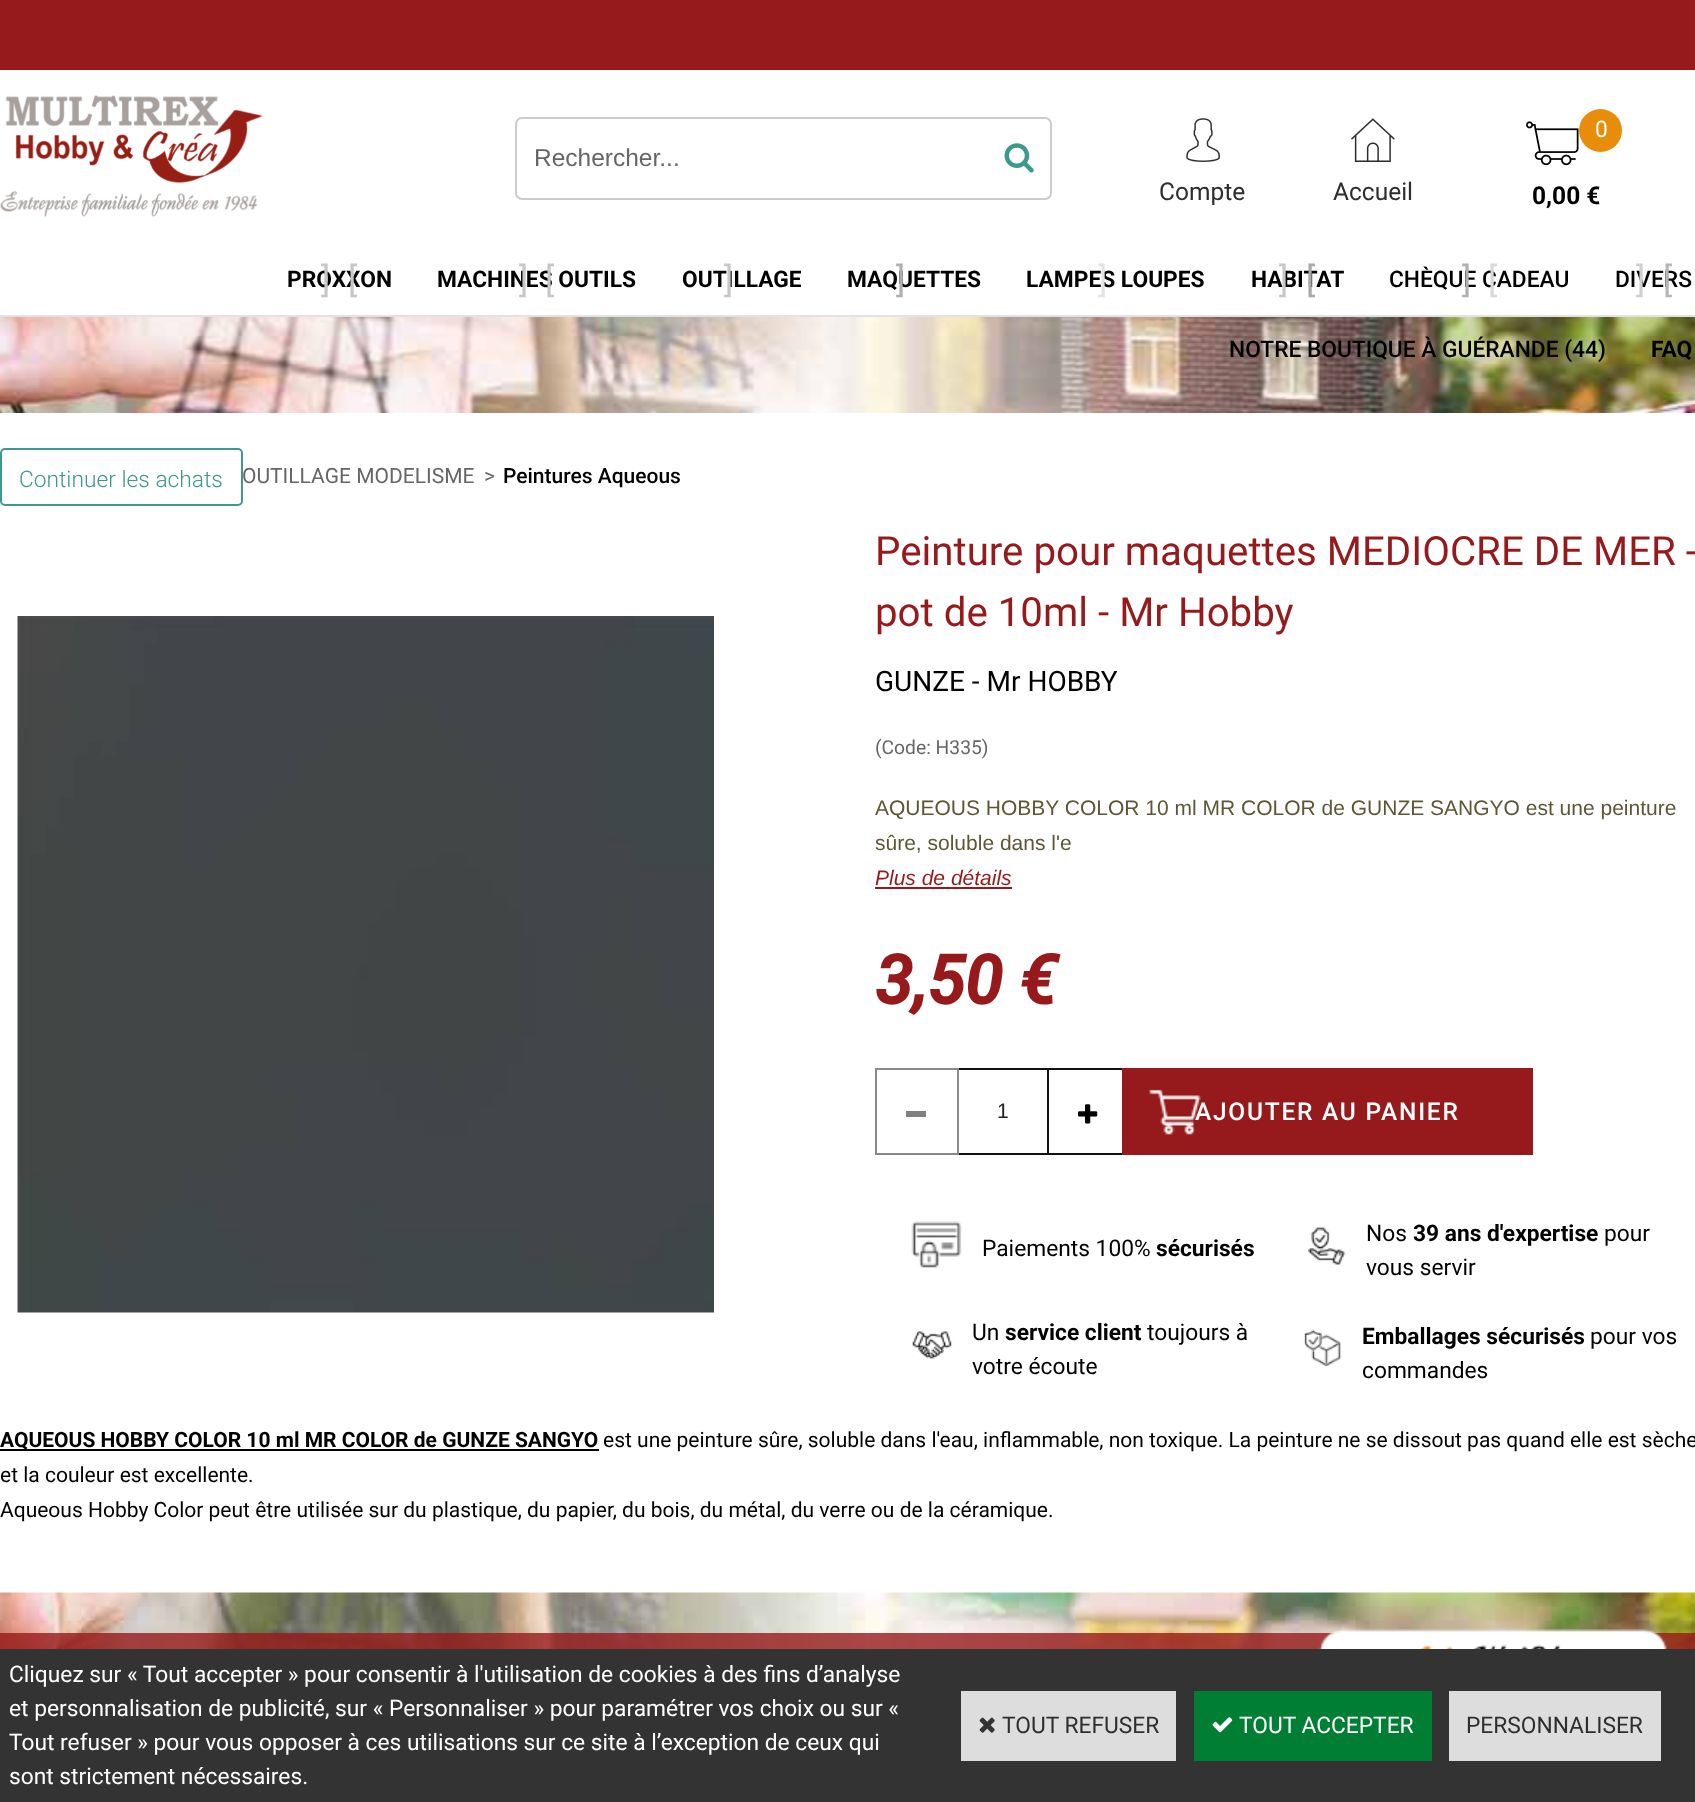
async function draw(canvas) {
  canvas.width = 1695
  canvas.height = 1802
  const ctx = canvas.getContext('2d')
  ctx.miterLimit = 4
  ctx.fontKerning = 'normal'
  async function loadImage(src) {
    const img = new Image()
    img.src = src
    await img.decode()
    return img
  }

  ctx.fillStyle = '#fff'
  ctx.fillRect(0, 0, 1695, 1802)
  ctx.drawImage(await loadImage('image0.png'), 0, 317, 1695, 96)
  ctx.drawImage(await loadImage('image1.png'), 0, 1592, 1695, 57)
  ctx.fillStyle = '#961a1c'
  ctx.fillRect(0, 0, 1695, 70)
  ctx.fillStyle = '#e2e2e2'
  ctx.fillRect(0, 315, 1695, 2)
  ctx.drawImage(await loadImage('image2.png'), 0, 95, 263, 122)
  ctx.beginPath()
  ctx.roundRect(516, 118, 535, 81, 6)
  ctx.strokeStyle = '#ccc'
  ctx.lineWidth = 2
  ctx.stroke()
  ctx.font = '24.5px Liberation Sans'
  ctx.fillStyle = '#666'
  ctx.fillText('Rechercher...', 534, 166)
  ctx.drawImage(await loadImage('image3.png'), 1004, 143, 30, 30)
  ctx.drawImage(await loadImage('image4.png'), 1186, 118, 34, 44)
  ctx.font = '24.5px Roboto'
  ctx.fillStyle = '#2e2e2e'
  ctx.fillText('Compte', 1159, 200)
  ctx.drawImage(await loadImage('image5.png'), 1351, 118, 44, 44)
  ctx.fillText('Accueil', 1333, 200)
  ctx.drawImage(await loadImage('image6.png'), 1526, 121, 53, 45)
  ctx.fillStyle = '#e88d0a'
  ctx.beginPath()
  ctx.arc(1600.5, 130.5, 21.5, 0, 2 * Math.PI)
  ctx.fill()
  ctx.font = '22.75px Roboto'
  ctx.fillStyle = '#fff'
  ctx.fillText('0', 1595, 137)
  ctx.font = 'bold 24.5px Roboto'
  ctx.fillStyle = '#000'
  ctx.fillText('0,00 €', 1532, 204)
  ctx.font = 'bold 22.75px Roboto'
  ctx.fillText('PROXXON', 287, 287)
  ctx.font = '35px Roboto'
  ctx.fillStyle = '#c7c7c7'
  ctx.fillText(']', 321, 292)
  ctx.fillText('[', 348, 292)
  ctx.font = 'bold 22.75px Roboto'
  ctx.fillStyle = '#000'
  ctx.fillText('MACHINES OUTILS', 437, 287)
  ctx.font = '35px Roboto'
  ctx.fillStyle = '#c7c7c7'
  ctx.fillText(']', 519, 292)
  ctx.fillText('[', 545, 292)
  ctx.font = 'bold 22.75px Roboto'
  ctx.fillStyle = '#000'
  ctx.fillText('OUTILLAGE', 682, 287)
  ctx.font = '35px Roboto'
  ctx.fillStyle = '#c7c7c7'
  ctx.fillText(']', 724, 292)
  ctx.font = 'bold 22.75px Roboto'
  ctx.fillStyle = '#000'
  ctx.fillText('MAQUETTES', 847, 287)
  ctx.font = '35px Roboto'
  ctx.fillStyle = '#b0b0b0'
  ctx.fillText(']', 896, 292)
  ctx.font = 'bold 22.75px Roboto'
  ctx.fillStyle = '#000'
  ctx.fillText('LAMPES LOUPES', 1026, 287)
  ctx.font = '35px Roboto'
  ctx.fillStyle = '#e3e3e3'
  ctx.fillText(']', 1098, 292)
  ctx.font = 'bold 22.75px Roboto'
  ctx.fillStyle = '#000'
  ctx.fillText('HABITAT', 1251, 287)
  ctx.font = '35px Roboto'
  ctx.fillStyle = '#c7c7c7'
  ctx.fillText(']', 1279, 292)
  ctx.fillStyle = '#a9a9a9'
  ctx.fillText('[', 1306, 292)
  ctx.font = '500 22.75px Roboto'
  ctx.fillStyle = '#000'
  ctx.fillText('CHÈQUE CADEAU', 1389, 287)
  ctx.font = '35px Roboto'
  ctx.fillStyle = '#b0b0b0'
  ctx.fillText(']', 1462, 292)
  ctx.fillStyle = '#d8d8d8'
  ctx.fillText('[', 1488, 292)
  ctx.font = '500 22.75px Roboto'
  ctx.fillStyle = '#000'
  ctx.fillText('DIVERS', 1615, 287)
  ctx.font = '35px Roboto'
  ctx.fillStyle = '#d0d0d0'
  ctx.fillText(']', 1636, 292)
  ctx.fillStyle = '#b6b6b6'
  ctx.fillText('[', 1663, 292)
  ctx.font = '500 22.75px Roboto'
  ctx.fillStyle = '#000'
  ctx.fillText('NOTRE BOUTIQUE À GUÉRANDE (44)', 1229, 357)
  ctx.font = 'bold 22.75px Roboto'
  ctx.fillText('FAQ', 1651, 357)
  ctx.fillStyle = '#961a1ccc'
  ctx.fillRect(0, 1633, 1695, 16)
  ctx.drawImage(await loadImage('image7.png'), 1319, 1629, 348, 20)
  ctx.beginPath()
  ctx.roundRect(1, 449, 241, 56, 4)
  ctx.strokeStyle = '#3d998f'
  ctx.stroke()
  ctx.font = '300 22.75px Roboto'
  ctx.fillStyle = '#3d998f'
  ctx.fillText('Continuer les achats', 19, 487)
  ctx.font = '21px Roboto'
  ctx.fillStyle = '#666'
  ctx.fillText('OUTILLAGE MODELISME', 242, 483)
  ctx.fillText('>', 484, 483)
  ctx.font = '500 21px Roboto'
  ctx.fillStyle = '#000'
  ctx.fillText('Peintures Aqueous', 503, 483)
  ctx.drawImage(await loadImage('image8.png'), 17, 616, 697, 697)
  ctx.font = '40.25px Roboto'
  ctx.fillStyle = '#961a1c'
  ctx.fillText('Peinture pour maquettes MEDIOCRE DE MER -', 875, 565)
  ctx.fillText('pot de 10ml - Mr Hobby', 875, 626)
  ctx.font = '28px Roboto'
  ctx.fillStyle = '#000'
  ctx.fillText('GUNZE - Mr HOBBY', 875, 691)
  ctx.font = '19.25px Roboto'
  ctx.fillStyle = '#666'
  ctx.fillText('(Code: H335)', 875, 754)
  ctx.font = '21px Liberation Sans'
  ctx.fillStyle = '#5e5737'
  ctx.fillText('AQUEOUS HOBBY COLOR 10 ml MR COLOR de GUNZE SANGYO est une peinture', 875, 815)
  ctx.fillText('sûre, soluble dans l\'e', 875, 850)
  ctx.font = 'italic 21px Liberation Sans'
  ctx.fillStyle = '#961a1c'
  ctx.fillText('Plus de détails', 875, 885)
  ctx.fillRect(875, 887, 137, 2)
  ctx.font = 'italic bold 68px Roboto'
  ctx.fillText('3,50 €', 875, 1004)
  ctx.strokeStyle = '#888'
  ctx.strokeRect(876, 1069, 82, 85)
  ctx.fillStyle = '#808080'
  ctx.fillRect(906, 1111, 20, 6)
  ctx.fillStyle = '#111'
  ctx.fillRect(959, 1068, 88, 2)
  ctx.fillRect(959, 1153, 88, 2)
  ctx.font = '21px Liberation Sans'
  ctx.fillStyle = '#212121'
  ctx.fillText('1', 997, 1118)
  ctx.strokeStyle = '#111'
  ctx.strokeRect(1048, 1069, 82, 85)
  ctx.drawImage(await loadImage('image9.png'), 1078, 1104, 20, 20)
  ctx.fillStyle = '#961a1c'
  ctx.fillRect(1122, 1068, 411, 87)
  ctx.drawImage(await loadImage('image10.png'), 1149, 1089, 52, 46)
  ctx.letterSpacing = '1.75px'
  ctx.font = '500 24.5px Roboto'
  ctx.fillStyle = '#fff'
  ctx.fillText('AJOUTER AU PANIER', 1195, 1120)
  ctx.drawImage(await loadImage('image11.png'), 911, 1221, 51, 47)
  ctx.letterSpacing = '0px'
  ctx.font = '22.75px Roboto'
  ctx.fillStyle = '#000'
  ctx.fillText('Paiements 100%', 982, 1256)
  ctx.font = 'bold 22.75px Roboto'
  ctx.fillText('sécurisés', 1156, 1256)
  ctx.drawImage(await loadImage('image12.png'), 912, 1331, 41, 28)
  ctx.font = '22.75px Roboto'
  ctx.fillText('Un', 972, 1340)
  ctx.font = 'bold 22.75px Roboto'
  ctx.fillText('service client', 1005, 1340)
  ctx.font = '22.75px Roboto'
  ctx.fillText('toujours à', 1147, 1340)
  ctx.fillText('votre écoute', 972, 1374)
  ctx.drawImage(await loadImage('image13.png'), 1308, 1227, 38, 38)
  ctx.fillText('Nos', 1366, 1241)
  ctx.font = 'bold 22.75px Roboto'
  ctx.fillText('39 ans d\'expertise', 1413, 1241)
  ctx.font = '22.75px Roboto'
  ctx.fillText('pour', 1604, 1241)
  ctx.fillText('vous servir', 1366, 1275)
  ctx.drawImage(await loadImage('image14.png'), 1303, 1329, 39, 38)
  ctx.font = 'bold 22.75px Roboto'
  ctx.fillText('Emballages sécurisés', 1362, 1344)
  ctx.font = '22.75px Roboto'
  ctx.fillText('pour vos', 1590, 1344)
  ctx.fillText('commandes', 1362, 1378)
  ctx.fillRect(0, 1449, 599, 2)
  ctx.font = 'bold 21px Roboto'
  ctx.fillText('AQUEOUS HOBBY COLOR 10 ml MR COLOR de GUNZE SANGYO', 0, 1447)
  ctx.font = '21px Roboto'
  ctx.fillText('est une peinture sûre, soluble dans l\'eau, inflammable, non toxique. La peinture ne se dissout pas quand elle est sèche', 603, 1447)
  ctx.fillText('et la couleur est excellente.', 0, 1482)
  ctx.fillText('Aqueous Hobby Color peut être utilisée sur du plastique, du papier, du bois, du métal, du verre ou de la céramique.', 0, 1517)
  ctx.fillStyle = '#333'
  ctx.fillRect(0, 1649, 1695, 153)
  ctx.font = '22.75px Roboto'
  ctx.fillStyle = '#fff'
  ctx.fillText('Cliquez sur « Tout accepter » pour consentir à l\'utilisation de cookies à des fins d’analyse', 9, 1682)
  ctx.fillText('et personnalisation de publicité, sur « Personnaliser » pour paramétrer vos choix ou sur «', 9, 1716)
  ctx.fillText('Tout refuser » pour vous opposer à ces utilisations sur ce site à l’exception de ceux qui', 9, 1750)
  ctx.fillText('sont strictement nécessaires.', 9, 1784)
  ctx.fillStyle = '#ddd'
  ctx.fillRect(961, 1691, 215, 70)
  ctx.drawImage(await loadImage('image15.png'), 979, 1717, 16, 16)
  ctx.fillStyle = '#2e2e2e'
  ctx.fillText('TOUT REFUSER', 1002, 1733)
  ctx.fillStyle = '#007e33'
  ctx.fillRect(1194, 1691, 238, 70)
  ctx.drawImage(await loadImage('image16.png'), 1212, 1717, 21, 16)
  ctx.fillStyle = '#fff'
  ctx.fillText('TOUT ACCEPTER', 1239, 1733)
  ctx.fillStyle = '#ddd'
  ctx.fillRect(1449, 1691, 212, 70)
  ctx.fillStyle = '#2e2e2e'
  ctx.fillText('PERSONNALISER', 1466, 1733)
}

draw(document.querySelector('canvas'))
